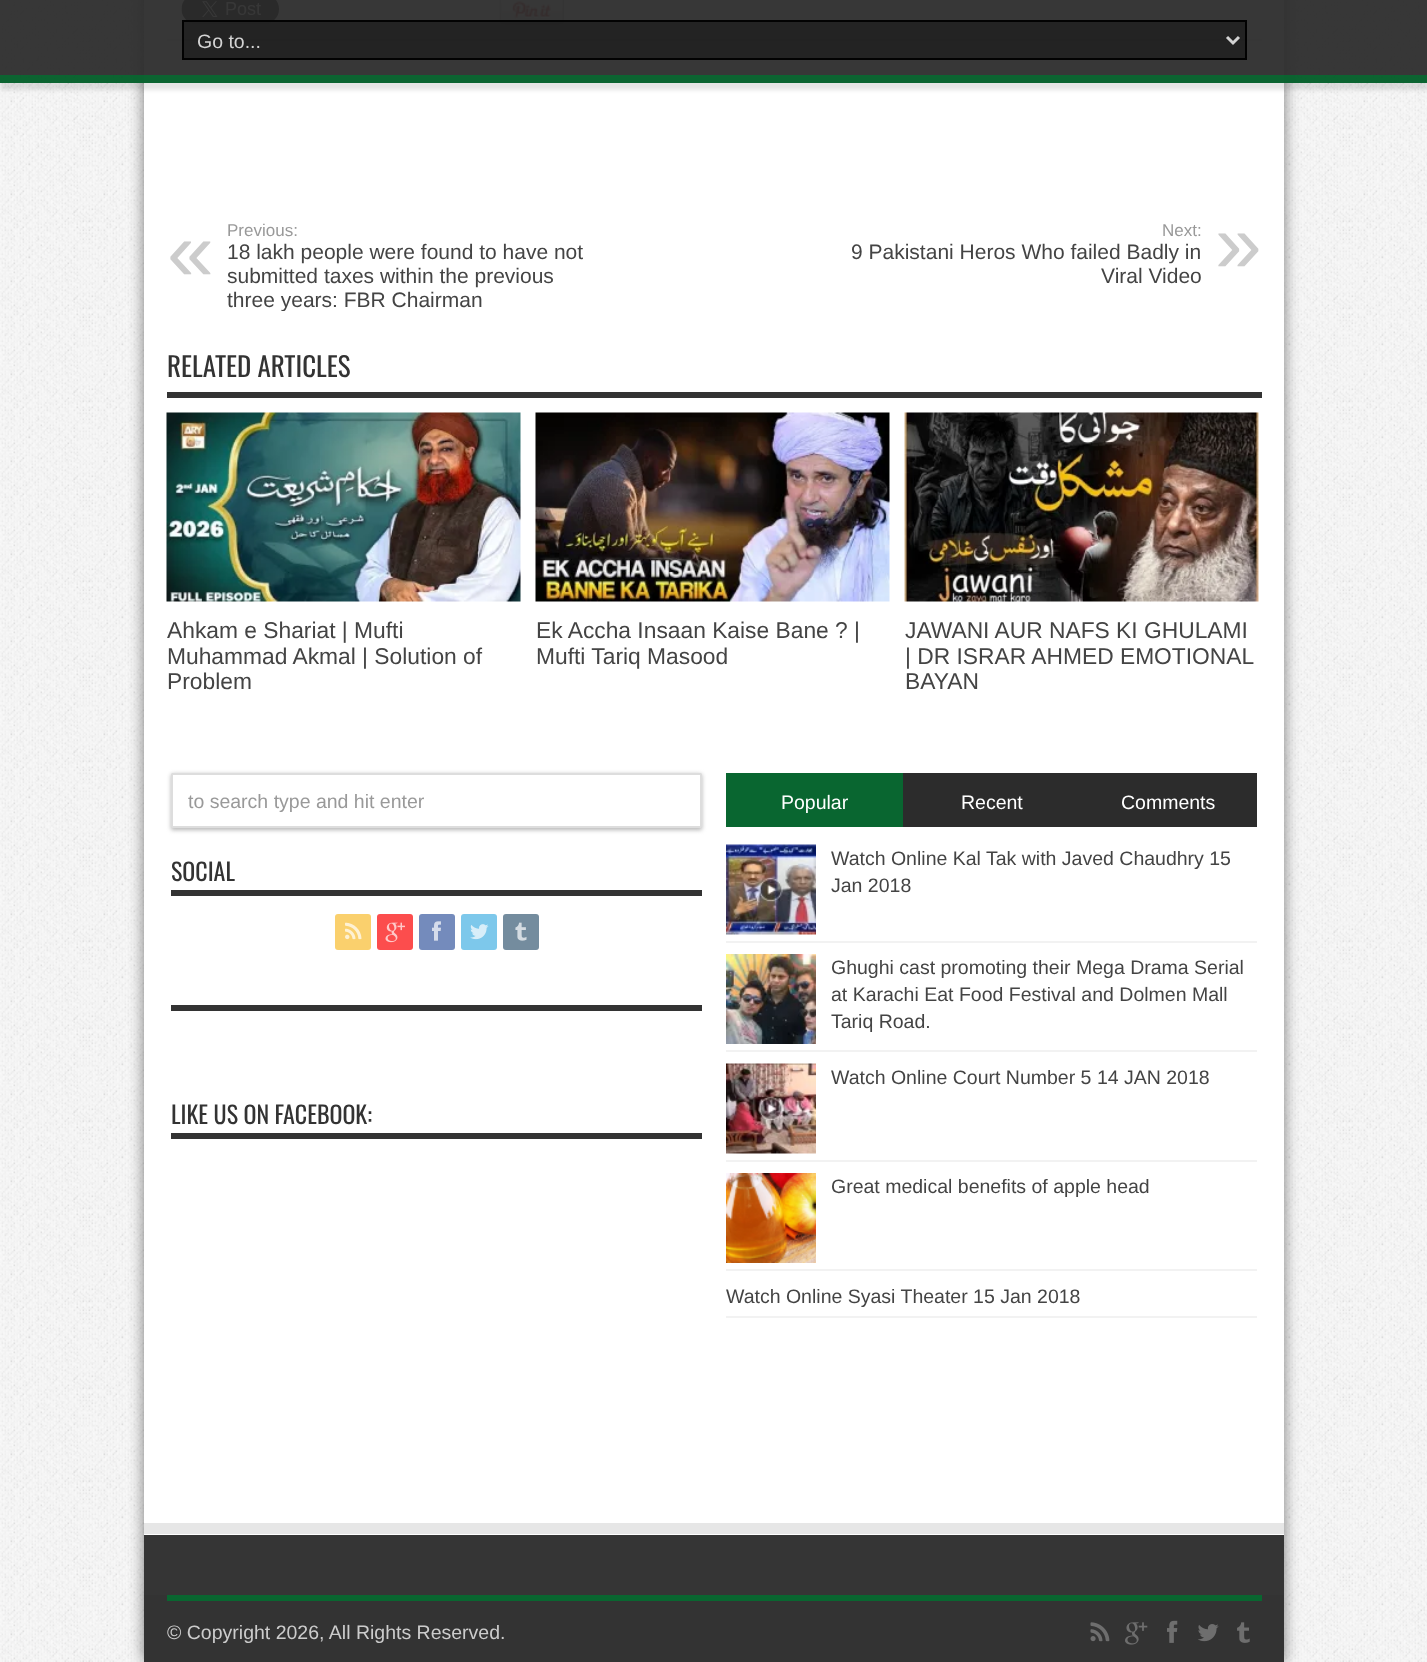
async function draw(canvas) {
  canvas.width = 1427
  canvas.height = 1662
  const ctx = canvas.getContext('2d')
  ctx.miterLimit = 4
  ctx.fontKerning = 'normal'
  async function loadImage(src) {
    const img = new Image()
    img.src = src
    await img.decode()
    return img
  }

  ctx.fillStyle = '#fff'
  ctx.fillRect(0, 0, 1427, 1662)
  ctx.drawImage(await loadImage('image0.png'), 0, 0, 1427, 1662)
  ctx.fillStyle = '#00000080'
  ctx.filter = 'blur(7.5px)'
  ctx.beginPath()
  ctx.rect(144, -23, 1140, 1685)
  ctx.fill()
  ctx.filter = 'none'
  ctx.fillStyle = '#fff'
  ctx.fillRect(144, 0, 1140, 1535)
  ctx.fillStyle = '#f7f7f7'
  ctx.fillRect(167, 0, 1095, 39)
  ctx.fillStyle = '#eaeaea'
  ctx.fillRect(167, 39, 1095, 2)
  ctx.drawImage(await loadImage('image1.png'), 181, 0, 98, 24)
  ctx.drawImage(await loadImage('image2.png'), 499, 0, 65, 25)
  ctx.save()
  ctx.beginPath()
  ctx.moveTo(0, 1)
  ctx.lineTo(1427, 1)
  ctx.lineTo(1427, 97)
  ctx.lineTo(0, 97)
  ctx.closePath()
  ctx.moveTo(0, 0)
  ctx.lineTo(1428, 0)
  ctx.lineTo(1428, 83)
  ctx.lineTo(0, 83)
  ctx.closePath()
  ctx.clip('evenodd')
  ctx.fillStyle = '#0000001a'
  ctx.filter = 'blur(2px)'
  ctx.beginPath()
  ctx.rect(0, 8, 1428, 82)
  ctx.fill()
  ctx.filter = 'none'
  ctx.restore()
  ctx.fillStyle = '#2c2c2cf2'
  ctx.fillRect(0, 0, 1427, 83)
  ctx.fillStyle = '#096630f2'
  ctx.fillRect(0, 75, 1427, 8)
  ctx.fillStyle = '#222222f2'
  ctx.beginPath()
  ctx.rect(183, 21, 1063, 38)
  ctx.fill()
  ctx.strokeStyle = '#020202'
  ctx.lineWidth = 2
  ctx.stroke()
  ctx.beginPath()
  ctx.moveTo(1227, 37)
  ctx.lineTo(1233, 43)
  ctx.lineTo(1239, 37)
  ctx.strokeStyle = '#d4d4d4'
  ctx.lineWidth = 3
  ctx.stroke()
  ctx.font = '19.5px Liberation Sans'
  ctx.fillStyle = '#d4d4d4'
  ctx.fillText('Go to...', 197, 48)
  ctx.font = '17px Liberation Sans'
  ctx.fillStyle = '#999'
  ctx.fillText('Previous:', 227, 236)
  ctx.font = '84px Liberation Sans'
  ctx.fillStyle = '#ccc'
  ctx.fillText('«', 167, 280)
  ctx.font = '21px Liberation Sans'
  ctx.fillStyle = '#444'
  ctx.fillText('18 lakh people were found to have not', 227, 259)
  ctx.fillText('submitted taxes within the previous', 227, 283)
  ctx.save()
  ctx.beginPath()
  ctx.rect(167, 221, 1095, 90)
  ctx.clip()
  ctx.fillText('three years: FBR Chairman', 227, 307)
  ctx.restore()
  ctx.font = '17px Liberation Sans'
  ctx.fillStyle = '#999'
  ctx.fillText('Next:', 1162, 236)
  ctx.font = '21px Liberation Sans'
  ctx.fillStyle = '#444'
  ctx.fillText('9 Pakistani Heros Who failed Badly in', 851, 259)
  ctx.font = '84px Liberation Sans'
  ctx.fillStyle = '#ccc'
  ctx.fillText('»', 1215, 272)
  ctx.font = '21px Liberation Sans'
  ctx.fillStyle = '#444'
  ctx.fillText('Viral Video', 1101, 283)
  ctx.fillStyle = '#333'
  ctx.fillRect(167, 392, 1095, 6)
  ctx.font = '27px Oswald'
  ctx.fillText('RELATED ARTICLES', 167, 377)
  ctx.drawImage(await loadImage('image3.png'), 166, 412, 355, 190)
  ctx.font = '22.8px Liberation Sans'
  ctx.fillStyle = '#444'
  ctx.fillText('Ahkam e Shariat | Mufti', 167, 638)
  ctx.fillText('Muhammad Akmal | Solution of', 167, 664)
  ctx.fillText('Problem', 167, 689)
  ctx.drawImage(await loadImage('image4.png'), 535, 412, 355, 190)
  ctx.fillText('Ek Accha Insaan Kaise Bane ? |', 536, 638)
  ctx.fillText('Mufti Tariq Masood', 536, 664)
  ctx.drawImage(await loadImage('image5.png'), 904, 412, 355, 190)
  ctx.fillText('JAWANI AUR NAFS KI GHULAMI', 905, 638)
  ctx.fillText('| DR ISRAR AHMED EMOTIONAL', 905, 664)
  ctx.fillText('BAYAN', 905, 689)
  ctx.fillStyle = '#b5b5b5'
  ctx.filter = 'blur(2px)'
  ctx.beginPath()
  ctx.roundRect(171, 774, 531, 56, 1.5)
  ctx.fill()
  ctx.filter = 'none'
  ctx.fillStyle = '#fff'
  ctx.beginPath()
  ctx.roundRect(172, 774, 529, 53, 0.5)
  ctx.fill()
  ctx.strokeStyle = '#ddd'
  ctx.lineWidth = 2
  ctx.stroke()
  ctx.save()
  ctx.beginPath()
  ctx.rect(188, 789, 498, 23)
  ctx.clip()
  ctx.font = '19.5px Liberation Sans'
  ctx.fillStyle = '#999'
  ctx.fillText('to search type and hit enter', 188, 808)
  ctx.restore()
  ctx.fillStyle = '#096630'
  ctx.fillRect(726, 773, 177, 54)
  ctx.font = '19.5px Liberation Sans'
  ctx.fillStyle = '#fff'
  ctx.fillText('Popular', 781, 809)
  ctx.fillStyle = '#2c2c2c'
  ctx.fillRect(903, 773, 354, 54)
  ctx.fillStyle = '#fff'
  ctx.fillText('Recent', 961, 809)
  ctx.fillText('Comments', 1121, 809)
  ctx.fillStyle = '#f2f2f2'
  ctx.fillRect(726, 941, 531, 2)
  ctx.drawImage(await loadImage('image6.png'), 726, 844, 90, 91)
  ctx.fillStyle = '#444'
  ctx.fillText('Watch Online Kal Tak with Javed Chaudhry 15', 831, 865)
  ctx.fillText('Jan 2018', 831, 892)
  ctx.fillStyle = '#f2f2f2'
  ctx.fillRect(726, 1050, 531, 2)
  ctx.drawImage(await loadImage('image7.png'), 726, 954, 90, 90)
  ctx.fillStyle = '#444'
  ctx.fillText('Ghughi cast promoting their Mega Drama Serial', 831, 974)
  ctx.fillText('at Karachi Eat Food Festival and Dolmen Mall', 831, 1001)
  ctx.fillText('Tariq Road.', 831, 1028)
  ctx.fillStyle = '#f2f2f2'
  ctx.fillRect(726, 1160, 531, 2)
  ctx.drawImage(await loadImage('image8.png'), 726, 1063, 90, 91)
  ctx.fillStyle = '#444'
  ctx.fillText('Watch Online Court Number 5 14 JAN 2018', 831, 1084)
  ctx.fillStyle = '#f2f2f2'
  ctx.fillRect(726, 1269, 531, 2)
  ctx.drawImage(await loadImage('image9.png'), 726, 1173, 90, 90)
  ctx.fillStyle = '#444'
  ctx.fillText('Great medical benefits of apple head', 831, 1193)
  ctx.fillStyle = '#f2f2f2'
  ctx.fillRect(726, 1316, 531, 2)
  ctx.fillStyle = '#444'
  ctx.fillText('Watch Online Syasi Theater 15 Jan 2018', 726, 1303)
  ctx.fillStyle = '#333'
  ctx.fillRect(171, 890, 531, 6)
  ctx.font = '24px Oswald'
  ctx.fillText('SOCIAL', 171, 881)
  ctx.fillStyle = '#fad06d'
  ctx.beginPath()
  ctx.roundRect(335, 914, 36, 36, 3)
  ctx.fill()
  ctx.drawImage(await loadImage('image10.png'), 345, 922, 17, 18)
  ctx.fillStyle = '#fc4d4d'
  ctx.beginPath()
  ctx.roundRect(377, 914, 36, 36, 3)
  ctx.fill()
  ctx.drawImage(await loadImage('image11.png'), 385, 922, 20, 21)
  ctx.fillStyle = '#748bbc'
  ctx.beginPath()
  ctx.roundRect(419, 914, 36, 36, 3)
  ctx.fill()
  ctx.drawImage(await loadImage('image12.png'), 432, 921, 9, 20)
  ctx.fillStyle = '#7dc8eb'
  ctx.beginPath()
  ctx.roundRect(461, 914, 36, 36, 3)
  ctx.fill()
  ctx.drawImage(await loadImage('image13.png'), 470, 924, 19, 16)
  ctx.fillStyle = '#748c9e'
  ctx.beginPath()
  ctx.roundRect(503, 914, 36, 36, 3)
  ctx.fill()
  ctx.drawImage(await loadImage('image14.png'), 515, 922, 12, 19)
  ctx.fillStyle = '#333'
  ctx.fillRect(171, 1005, 531, 6)
  ctx.fillRect(171, 1133, 531, 6)
  ctx.fillText('LIKE US ON FACEBOOK:', 171, 1124)
  ctx.fillStyle = '#e6e6e6'
  ctx.fillRect(144, 1523, 1140, 11)
  ctx.fillStyle = '#353535'
  ctx.fillRect(144, 1535, 1140, 60)
  ctx.fillStyle = '#333'
  ctx.fillRect(144, 1595, 1140, 67)
  ctx.fillStyle = '#096630'
  ctx.fillRect(167, 1595, 1095, 6)
  ctx.font = '19.5px Liberation Sans'
  ctx.fillStyle = '#ccc'
  ctx.fillText('© Copyright 2026, All Rights Reserved.', 167, 1639)
  ctx.drawImage(await loadImage('image15.png'), 1090, 1622, 20, 20)
  ctx.drawImage(await loadImage('image16.png'), 1125, 1622, 23, 23)
  ctx.drawImage(await loadImage('image17.png'), 1167, 1620, 11, 23)
  ctx.drawImage(await loadImage('image18.png'), 1198, 1624, 21, 18)
  ctx.drawImage(await loadImage('image19.png'), 1237, 1622, 13, 21)
}

draw(document.querySelector('canvas'))
